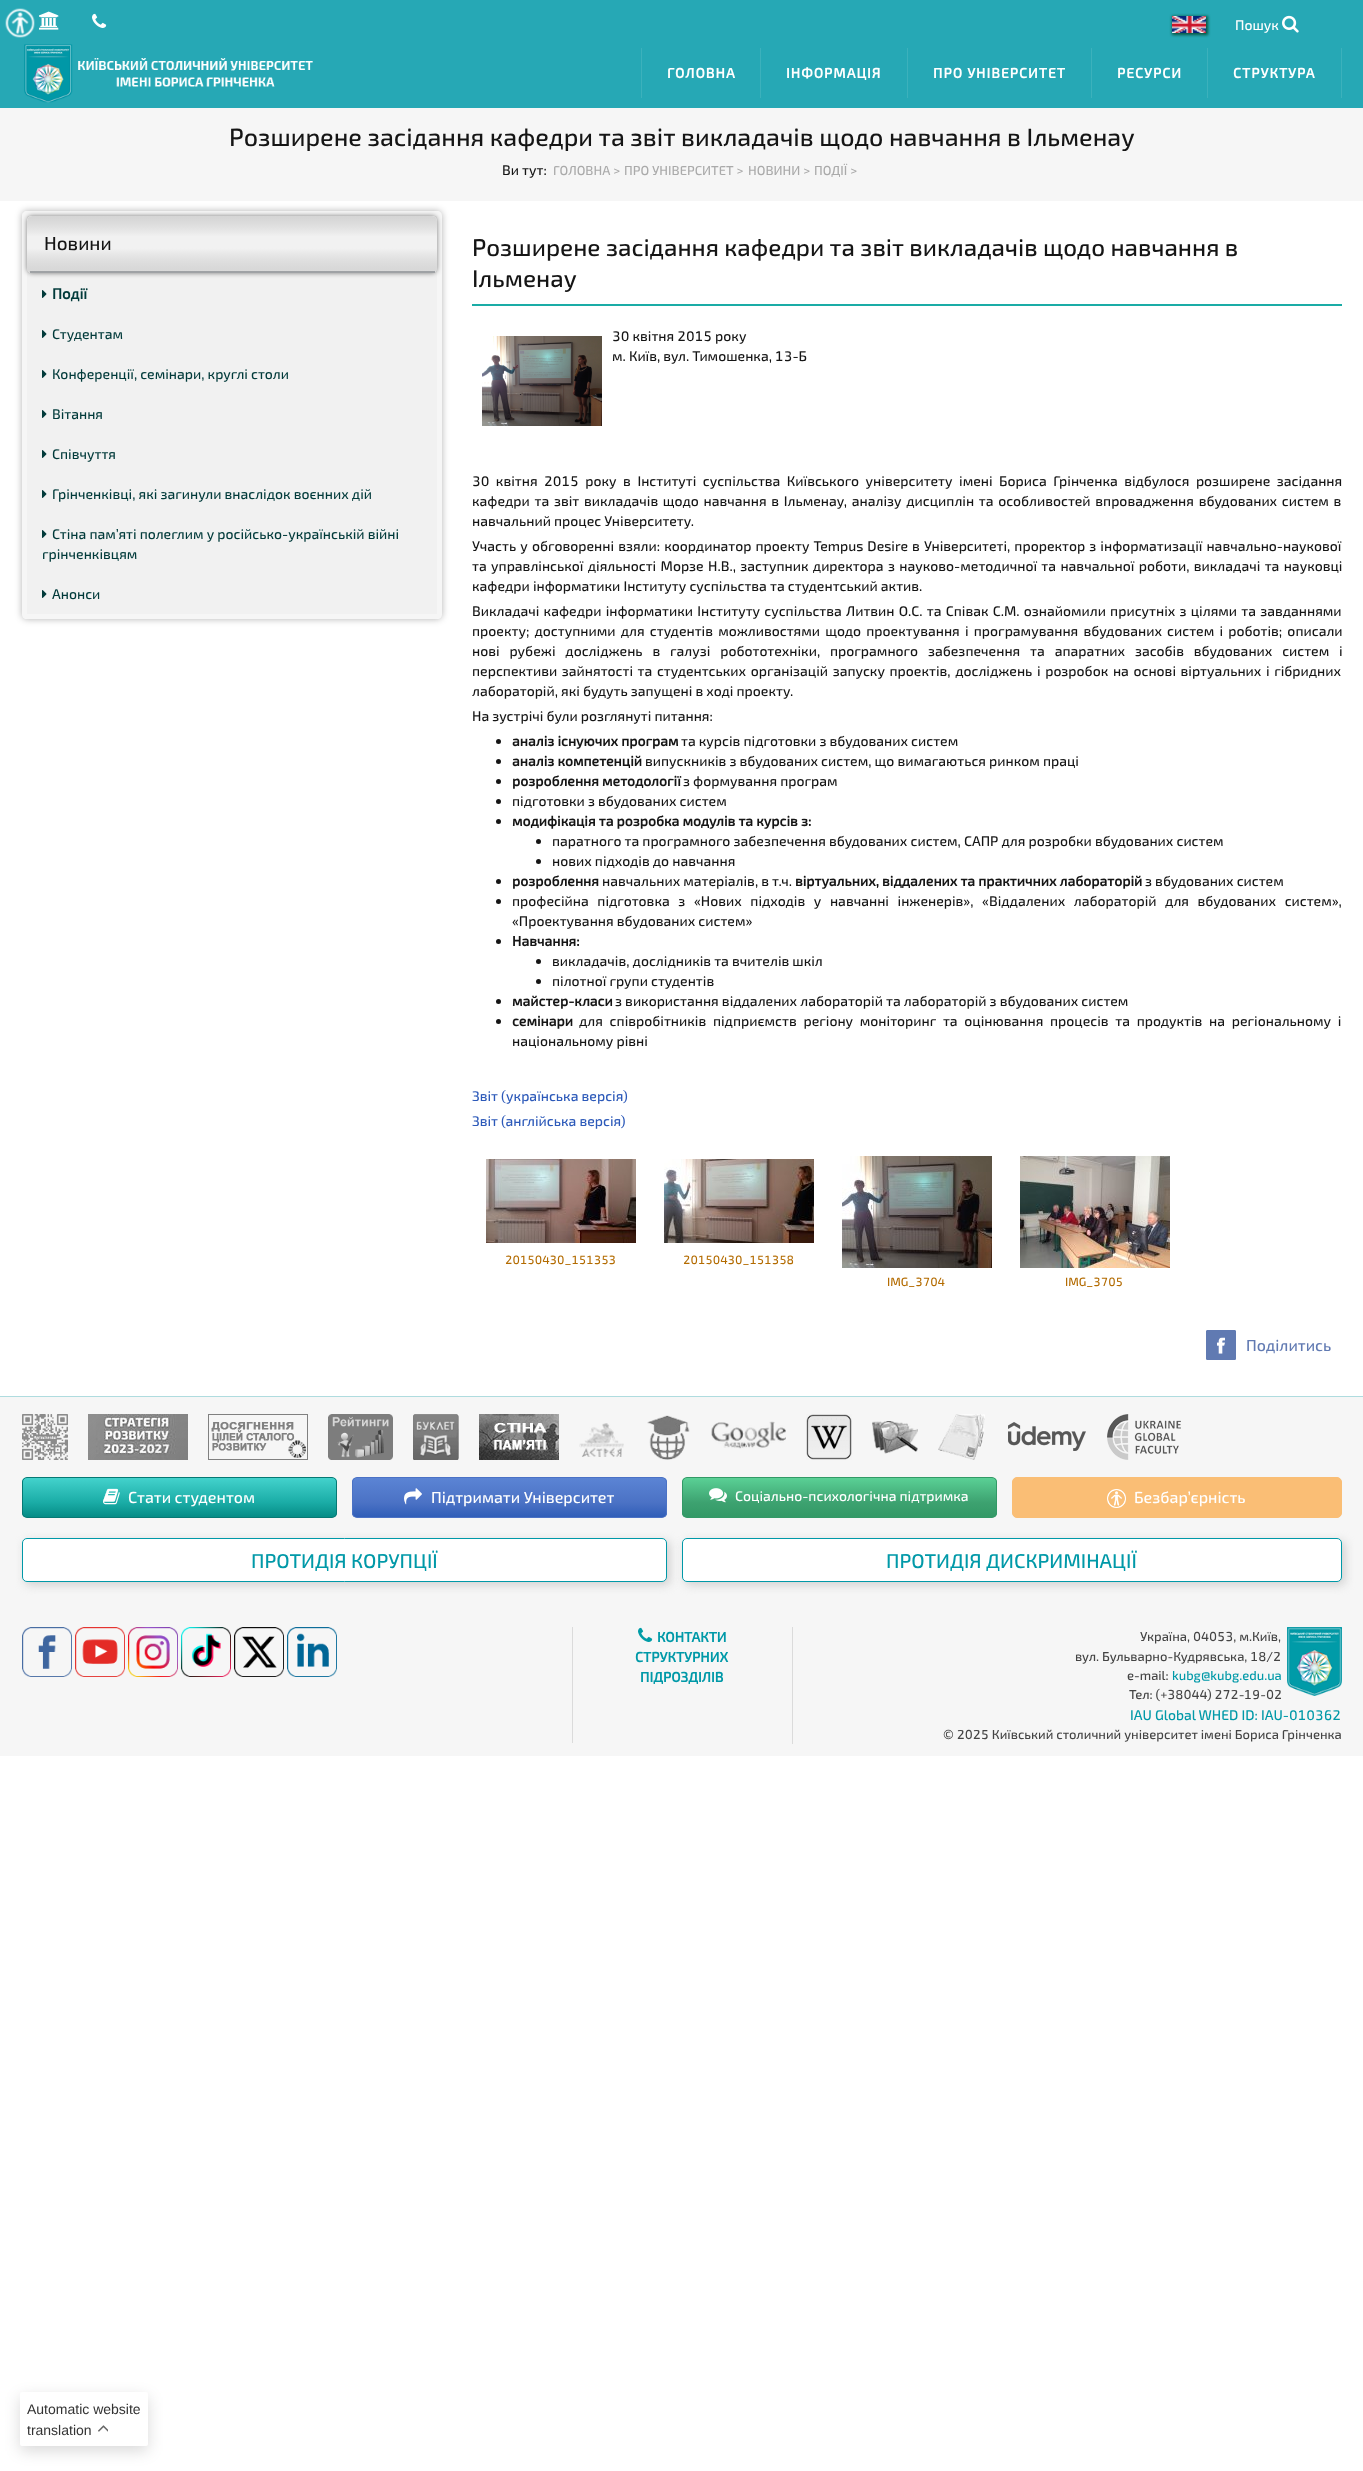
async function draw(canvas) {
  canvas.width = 1363
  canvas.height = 2471
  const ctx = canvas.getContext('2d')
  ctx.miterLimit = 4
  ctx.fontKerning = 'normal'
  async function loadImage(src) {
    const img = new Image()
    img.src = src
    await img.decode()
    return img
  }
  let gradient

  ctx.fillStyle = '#fff'
  ctx.fillRect(0, 0, 1363, 2471)
  ctx.fillStyle = '#26a8b5'
  ctx.fillRect(0, 0, 1363, 108)
  ctx.drawImage(await loadImage('image0.png'), 39, 11, 20, 19)
  ctx.drawImage(await loadImage('image1.png'), 92, 13, 15, 15)
  ctx.fillStyle = '#034e35e6'
  ctx.filter = 'blur(1.5px)'
  ctx.beginPath()
  ctx.rect(1172, 16, 36, 19)
  ctx.fill()
  ctx.filter = 'none'
  ctx.drawImage(await loadImage('image2.png'), 1172, 16, 34, 17)
  ctx.font = '500 14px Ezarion'
  ctx.fillStyle = '#fff'
  ctx.fillText('Пошук', 1235, 30)
  ctx.drawImage(await loadImage('image3.png'), 1282, 15, 17, 18)
  ctx.drawImage(await loadImage('image4.png'), 24, 44, 289, 59)
  ctx.fillStyle = '#3cb1bc'
  ctx.fillRect(760, 48, 1, 50)
  ctx.fillRect(641, 48, 1, 50)
  ctx.letterSpacing = '1px'
  ctx.font = 'bold 14px Ezarion'
  ctx.fillStyle = '#fff'
  ctx.fillText('ГОЛОВНА', 667, 78)
  ctx.fillStyle = '#3cb1bc'
  ctx.fillRect(907, 48, 1, 50)
  ctx.fillStyle = '#fff'
  ctx.fillText('ІНФОРМАЦІЯ', 786, 78)
  ctx.fillStyle = '#3cb1bc'
  ctx.fillRect(1091, 48, 1, 50)
  ctx.fillStyle = '#fff'
  ctx.fillText('ПРО УНІВЕРСИТЕТ', 933, 78)
  ctx.fillStyle = '#3cb1bc'
  ctx.fillRect(1207, 48, 1, 50)
  ctx.fillStyle = '#fff'
  ctx.fillText('РЕСУРСИ', 1117, 78)
  ctx.fillStyle = '#3cb1bc'
  ctx.fillRect(1341, 48, 1, 50)
  ctx.fillStyle = '#fff'
  ctx.fillText('СТРУКТУРА', 1233, 78)
  ctx.fillStyle = '#f6f6f6'
  ctx.fillRect(0, 108, 1363, 93)
  ctx.letterSpacing = '0px'
  ctx.font = '500 25px Ezarion'
  ctx.fillStyle = '#151515'
  ctx.fillText('Розширене засідання кафедри та звіт викладачів щодо навчання в Ільменау', 229, 146)
  ctx.font = '500 14px Ezarion'
  ctx.fillText('Ви тут:', 502, 175)
  ctx.font = '500 13px Ezarion'
  ctx.fillStyle = '#aaa'
  ctx.fillText('ГОЛОВНА >', 553, 175)
  ctx.fillText('ПРО УНІВЕРСИТЕТ >', 624, 175)
  ctx.fillText('НОВИНИ >', 748, 175)
  ctx.fillText('ПОДІЇ >', 814, 175)
  ctx.save()
  ctx.beginPath()
  ctx.moveTo(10, 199)
  ctx.lineTo(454, 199)
  ctx.lineTo(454, 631)
  ctx.lineTo(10, 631)
  ctx.closePath()
  ctx.moveTo(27, 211)
  ctx.lineTo(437, 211)
  ctx.bezierCurveTo(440, 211, 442, 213, 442, 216)
  ctx.lineTo(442, 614)
  ctx.bezierCurveTo(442, 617, 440, 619, 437, 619)
  ctx.lineTo(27, 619)
  ctx.bezierCurveTo(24, 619, 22, 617, 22, 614)
  ctx.lineTo(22, 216)
  ctx.bezierCurveTo(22, 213, 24, 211, 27, 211)
  ctx.closePath()
  ctx.clip('evenodd')
  ctx.fillStyle = '#0000004d'
  ctx.filter = 'blur(3.5px)'
  ctx.beginPath()
  ctx.roundRect(22, 211, 420, 408, 5)
  ctx.fill()
  ctx.filter = 'none'
  ctx.restore()
  ctx.fillStyle = '#96969617'
  ctx.beginPath()
  ctx.roundRect(22, 211, 420, 408, 5)
  ctx.fill()
  ctx.fillStyle = '#f1f1f1'
  ctx.fillRect(27, 216, 410, 398)
  ctx.save()
  ctx.beginPath()
  ctx.moveTo(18, 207)
  ctx.lineTo(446, 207)
  ctx.lineTo(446, 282)
  ctx.lineTo(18, 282)
  ctx.closePath()
  ctx.moveTo(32, 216)
  ctx.lineTo(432, 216)
  ctx.bezierCurveTo(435, 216, 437, 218, 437, 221)
  ctx.lineTo(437, 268)
  ctx.bezierCurveTo(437, 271, 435, 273, 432, 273)
  ctx.lineTo(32, 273)
  ctx.bezierCurveTo(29, 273, 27, 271, 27, 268)
  ctx.lineTo(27, 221)
  ctx.bezierCurveTo(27, 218, 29, 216, 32, 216)
  ctx.closePath()
  ctx.clip('evenodd')
  ctx.fillStyle = '#00000080'
  ctx.filter = 'blur(2.5px)'
  ctx.beginPath()
  ctx.roundRect(27, 216, 410, 57, 5)
  ctx.fill()
  ctx.filter = 'none'
  ctx.restore()
  ctx.save()
  ctx.beginPath()
  ctx.roundRect(27, 216, 410, 57, 5)
  ctx.clip()
  gradient = ctx.createLinearGradient(232, 216, 232, 271)
  gradient.addColorStop(0, '#c8c8c8a6')
  gradient.addColorStop(0, '#c8c8c8b0')
  gradient.addColorStop(0.37, '#f1f1f1')
  gradient.addColorStop(0.59, '#f1f1f1')
  gradient.addColorStop(0.99, '#c8c8c89e')
  gradient.addColorStop(1, '#fff')
  ctx.fillStyle = gradient
  ctx.beginPath()
  ctx.roundRect(27, 216, 410, 55, [5, 5, 0, 0])
  ctx.fill()
  gradient = ctx.createLinearGradient(232, 271, 232, 326)
  gradient.addColorStop(0, '#c8c8c8a6')
  gradient.addColorStop(0, '#c8c8c8b0')
  gradient.addColorStop(0.37, '#f1f1f1')
  gradient.addColorStop(0.59, '#f1f1f1')
  gradient.addColorStop(0.99, '#c8c8c89e')
  gradient.addColorStop(1, '#fff')
  ctx.fillStyle = gradient
  ctx.fillRect(27, 271, 410, 2)
  ctx.restore()
  ctx.fillStyle = '#9fa2a5'
  ctx.fillRect(30, 271, 405, 2)
  ctx.font = '500 19px Ezarion'
  ctx.fillStyle = '#151515'
  ctx.fillText('Новини', 44, 250)
  ctx.drawImage(await loadImage('image5.png'), 42, 290, 5, 8)
  ctx.font = 'bold 15px Ezarion'
  ctx.fillStyle = '#013a3a'
  ctx.fillText('Події', 52, 299)
  ctx.drawImage(await loadImage('image5.png'), 42, 330, 5, 8)
  ctx.font = '500 14px Ezarion'
  ctx.fillText('Студентам', 52, 339)
  ctx.drawImage(await loadImage('image5.png'), 42, 370, 5, 8)
  ctx.fillText('Конференції, семінари, круглі столи', 52, 379)
  ctx.drawImage(await loadImage('image5.png'), 42, 410, 5, 8)
  ctx.fillText('Вітання', 52, 419)
  ctx.drawImage(await loadImage('image5.png'), 42, 450, 5, 8)
  ctx.fillText('Співчуття', 52, 459)
  ctx.drawImage(await loadImage('image5.png'), 42, 490, 5, 8)
  ctx.fillText('Грінченківці, які загинули внаслідок воєнних дій', 52, 499)
  ctx.drawImage(await loadImage('image5.png'), 42, 530, 5, 8)
  ctx.fillText('Стіна пам’яті полеглим у російсько-українській війні', 52, 539)
  ctx.fillText('грінченківцям', 42, 559)
  ctx.drawImage(await loadImage('image5.png'), 42, 590, 5, 8)
  ctx.fillText('Анонси', 52, 599)
  ctx.fillStyle = '#1aaca6'
  ctx.fillRect(472, 304, 870, 2)
  ctx.font = '500 24.2px Ezarion'
  ctx.fillStyle = '#151515'
  ctx.fillText('Розширене засідання кафедри та звіт викладачів щодо навчання в', 472, 256)
  ctx.fillText('Ільменау', 472, 287)
  ctx.drawImage(await loadImage('image6.png'), 482, 336, 120, 90)
  ctx.font = '500 14px Ezarion'
  ctx.fillText('30 квітня 2015 року', 612, 341)
  ctx.fillText('м. Київ, вул. Тимошенка, 13-Б', 612, 361)
  ctx.wordSpacing = '3.4px'
  ctx.fillText('30 квітня 2015 року в Інституті суспільства Київського університету імені Бориса Грінченка відбулося розширене засідання', 472, 486)
  ctx.wordSpacing = '1.6px'
  ctx.fillText('кафедри та звіт викладачів щодо навчання в Ільменау, аналізу дисциплін та особливостей впровадження вбудованих систем в', 472, 506)
  ctx.wordSpacing = '0px'
  ctx.fillText('навчальний процес Університету.', 472, 526)
  ctx.wordSpacing = '1px'
  ctx.fillText('Участь у обговоренні взяли: координатор проекту Tempus Desire в Університеті, проректор з інформатизації навчально-наукової', 472, 551)
  ctx.wordSpacing = '1.25px'
  ctx.fillText('та управлінської діяльності Морзе Н.В., заступник директора з науково-методичної та навчальної роботи, викладачі та науковці', 472, 571)
  ctx.wordSpacing = '0px'
  ctx.fillText('кафедри інформатики Інституту суспільства та студентський актив.', 472, 591)
  ctx.wordSpacing = '1.1px'
  ctx.fillText('Викладачі кафедри інформатики Інституту суспільства Литвин О.С. та Співак С.М. ознайомили присутніх з цілями та завданнями', 472, 616)
  ctx.wordSpacing = '2.1px'
  ctx.fillText('проекту; доступними для студентів можливостями щодо проектування і програмування вбудованих систем і роботів; описали', 472, 636)
  ctx.wordSpacing = '6.75px'
  ctx.fillText('нові рубежі досліджень в галузі робототехніки, програмного забезпечення та апаратних засобів вбудованих систем і', 472, 656)
  ctx.wordSpacing = '1.5px'
  ctx.fillText('перспективи зайнятості та студентських організацій запуску проектів, досліджень і розробок на основі віртуальних і гібридних', 472, 676)
  ctx.wordSpacing = '0px'
  ctx.fillText('лабораторій, які будуть запущені в ході проекту.', 472, 696)
  ctx.fillText('На зустрічі були розглянуті питання:', 472, 721)
  ctx.beginPath()
  ctx.arc(498.5, 741.5, 2.5, 0, 2 * Math.PI)
  ctx.fill()
  ctx.font = 'bold 14px Ezarion'
  ctx.fillText('аналіз існуючих програм', 512, 746)
  ctx.font = '500 14px Ezarion'
  ctx.fillText('та курсів підготовки з вбудованих систем', 681, 746)
  ctx.beginPath()
  ctx.arc(498.5, 761.5, 2.5, 0, 2 * Math.PI)
  ctx.fill()
  ctx.font = 'bold 14px Ezarion'
  ctx.fillText('аналіз компетенцій', 512, 766)
  ctx.font = '500 14px Ezarion'
  ctx.fillText('випускників з вбудованих систем, що вимагаються ринком праці', 645, 766)
  ctx.beginPath()
  ctx.arc(498.5, 781.5, 2.5, 0, 2 * Math.PI)
  ctx.fill()
  ctx.font = 'bold 14px Ezarion'
  ctx.fillText('розроблення методології', 512, 786)
  ctx.font = '500 14px Ezarion'
  ctx.fillText('з формування програм', 683, 786)
  ctx.beginPath()
  ctx.arc(498.5, 801.5, 2.5, 0, 2 * Math.PI)
  ctx.fill()
  ctx.fillText('підготовки з вбудованих систем', 512, 806)
  ctx.beginPath()
  ctx.arc(498.5, 821.5, 2.5, 0, 2 * Math.PI)
  ctx.fill()
  ctx.font = 'bold 14px Ezarion'
  ctx.fillText('модифікація та розробка модулів та курсів з:', 512, 826)
  ctx.beginPath()
  ctx.arc(538.5, 841.5, 2.5, 0, 2 * Math.PI)
  ctx.fill()
  ctx.font = '500 14px Ezarion'
  ctx.fillText('паратного та програмного забезпечення вбудованих систем, САПР для розробки вбудованих систем', 552, 846)
  ctx.beginPath()
  ctx.arc(538.5, 861.5, 2.5, 0, 2 * Math.PI)
  ctx.fill()
  ctx.fillText('нових підходів до навчання', 552, 866)
  ctx.beginPath()
  ctx.arc(498.5, 881.5, 2.5, 0, 2 * Math.PI)
  ctx.fill()
  ctx.font = 'bold 14px Ezarion'
  ctx.fillText('розроблення', 512, 886)
  ctx.font = '500 14px Ezarion'
  ctx.fillText('навчальних матеріалів, в т.ч.', 602, 886)
  ctx.font = 'bold 14px Ezarion'
  ctx.fillText('віртуальних, віддалених та практичних лабораторій', 795, 886)
  ctx.font = '500 14px Ezarion'
  ctx.fillText('з вбудованих систем', 1145, 886)
  ctx.beginPath()
  ctx.arc(498.5, 901.5, 2.5, 0, 2 * Math.PI)
  ctx.fill()
  ctx.wordSpacing = '5.5px'
  ctx.fillText('професійна підготовка з «Нових підходів у навчанні інженерів», «Віддалених лабораторій для вбудованих систем»,', 512, 906)
  ctx.wordSpacing = '0px'
  ctx.fillText('«Проектування вбудованих систем»', 512, 926)
  ctx.beginPath()
  ctx.arc(498.5, 941.5, 2.5, 0, 2 * Math.PI)
  ctx.fill()
  ctx.font = 'bold 14px Ezarion'
  ctx.fillText('Навчання:', 512, 946)
  ctx.beginPath()
  ctx.arc(538.5, 961.5, 2.5, 0, 2 * Math.PI)
  ctx.fill()
  ctx.font = '500 14px Ezarion'
  ctx.fillText('викладачів, дослідників та вчителів шкіл', 552, 966)
  ctx.beginPath()
  ctx.arc(538.5, 981.5, 2.5, 0, 2 * Math.PI)
  ctx.fill()
  ctx.fillText('пілотної групи студентів', 552, 986)
  ctx.beginPath()
  ctx.arc(498.5, 1001.5, 2.5, 0, 2 * Math.PI)
  ctx.fill()
  ctx.font = 'bold 14px Ezarion'
  ctx.fillText('майстер-класи', 512, 1006)
  ctx.font = '500 14px Ezarion'
  ctx.fillText('з використання віддалених лабораторій та лабораторій з вбудованих систем', 615, 1006)
  ctx.beginPath()
  ctx.arc(498.5, 1021.5, 2.5, 0, 2 * Math.PI)
  ctx.fill()
  ctx.font = 'bold 14px Ezarion'
  ctx.fillText('семінари', 512, 1026)
  ctx.wordSpacing = '3.6px'
  ctx.font = '500 14px Ezarion'
  ctx.fillText('для співробітників підприємств регіону моніторинг та оцінювання процесів та продуктів на регіональному і', 579, 1026)
  ctx.wordSpacing = '0px'
  ctx.fillText('національному рівні', 512, 1046)
  ctx.fillStyle = '#2c59b9'
  ctx.fillText('Звіт (українська версія)', 472, 1101)
  ctx.fillText('Звіт (англійська версія)', 472, 1126)
  ctx.drawImage(await loadImage('image7.png'), 486, 1159, 150, 84)
  ctx.font = '500 12px Ezarion'
  ctx.fillStyle = '#b36b00'
  ctx.fillText('20150430_151353', 505, 1264)
  ctx.drawImage(await loadImage('image8.png'), 664, 1159, 150, 84)
  ctx.fillText('20150430_151358', 683, 1264)
  ctx.drawImage(await loadImage('image9.png'), 842, 1156, 150, 112)
  ctx.fillText('IMG_3704', 887, 1286)
  ctx.drawImage(await loadImage('image10.png'), 1020, 1156, 150, 112)
  ctx.fillText('IMG_3705', 1065, 1286)
  ctx.drawImage(await loadImage('image11.png'), 1206, 1330, 30, 30)
  ctx.font = '500 16px Ezarion'
  ctx.fillStyle = '#617ab2'
  ctx.fillText('Поділитись', 1246, 1351)
  ctx.fillStyle = '#f6f6f6'
  ctx.fillRect(0, 1397, 1363, 359)
  ctx.fillStyle = '#afdcdf'
  ctx.fillRect(0, 1396, 1363, 1)
  ctx.drawImage(await loadImage('image12.png'), 22, 1414, 46, 46)
  ctx.drawImage(await loadImage('image13.png'), 88, 1414, 100, 46)
  ctx.drawImage(await loadImage('image14.png'), 208, 1414, 100, 46)
  ctx.drawImage(await loadImage('image15.png'), 328, 1414, 65, 46)
  ctx.drawImage(await loadImage('image16.png'), 413, 1414, 46, 46)
  ctx.drawImage(await loadImage('image17.png'), 479, 1414, 80, 46)
  ctx.drawImage(await loadImage('image18.png'), 579, 1423, 45, 34)
  ctx.drawImage(await loadImage('image19.png'), 647, 1415, 43, 45)
  ctx.drawImage(await loadImage('image20.png'), 711, 1421, 75, 28)
  ctx.drawImage(await loadImage('image21.png'), 806, 1414, 46, 46)
  ctx.drawImage(await loadImage('image22.png'), 872, 1421, 46, 33)
  ctx.drawImage(await loadImage('image23.png'), 938, 1414, 47, 46)
  ctx.drawImage(await loadImage('image24.png'), 1008, 1422, 78, 29)
  ctx.drawImage(await loadImage('image25.png'), 1107, 1414, 74, 46)
  ctx.save()
  ctx.beginPath()
  ctx.roundRect(22, 1477, 315, 41, 5)
  ctx.clip()
  gradient = ctx.createLinearGradient(180, 1478, 180, 1517)
  gradient.addColorStop(0, '#43d2cc')
  gradient.addColorStop(0.63, '#1aaca6')
  gradient.addColorStop(1, '#058c86')
  ctx.fillStyle = gradient
  ctx.fillRect(22, 1478, 315, 39)
  ctx.restore()
  ctx.beginPath()
  ctx.roundRect(22.5, 1477.5, 314, 40, 4.5)
  ctx.strokeStyle = '#067974'
  ctx.stroke()
  ctx.drawImage(await loadImage('image26.png'), 103, 1488, 17, 17)
  ctx.fillStyle = '#fff'
  ctx.fillText('Стати студентом', 128, 1503)
  ctx.save()
  ctx.beginPath()
  ctx.roundRect(352, 1477, 315, 41, 5)
  ctx.clip()
  gradient = ctx.createLinearGradient(510, 1478, 510, 1517)
  gradient.addColorStop(0, '#5b84d4')
  gradient.addColorStop(0.63, '#4b72c5')
  gradient.addColorStop(1, '#305eb8')
  ctx.fillStyle = gradient
  ctx.fillRect(352, 1478, 315, 39)
  ctx.restore()
  ctx.beginPath()
  ctx.roundRect(352.5, 1477.5, 314, 40, 4.5)
  ctx.strokeStyle = '#4b72c5'
  ctx.stroke()
  ctx.drawImage(await loadImage('image27.png'), 404, 1488, 18, 17)
  ctx.fillText('Підтримати Університет', 431, 1503)
  ctx.save()
  ctx.beginPath()
  ctx.roundRect(682, 1477, 315, 41, 5)
  ctx.clip()
  gradient = ctx.createLinearGradient(840, 1478, 840, 1517)
  gradient.addColorStop(0, '#5ad095')
  gradient.addColorStop(0.63, '#3da270')
  gradient.addColorStop(1, '#396')
  ctx.fillStyle = gradient
  ctx.fillRect(682, 1478, 315, 39)
  ctx.restore()
  ctx.beginPath()
  ctx.roundRect(682.5, 1477.5, 314, 40, 4.5)
  ctx.strokeStyle = '#396'
  ctx.stroke()
  ctx.drawImage(await loadImage('image28.png'), 709, 1488, 18, 15)
  ctx.font = '500 14px Ezarion'
  ctx.fillText('Соціально-психологічна підтримка', 735, 1501)
  ctx.fillStyle = '#fabe75'
  ctx.beginPath()
  ctx.roundRect(1012.5, 1477.5, 329, 40, 4.5)
  ctx.fill()
  ctx.strokeStyle = '#fabe75'
  ctx.stroke()
  ctx.drawImage(await loadImage('image29.png'), 1107, 1489, 19, 19)
  ctx.font = '500 16px Ezarion'
  ctx.fillStyle = '#fff'
  ctx.fillText('Безбар’єрність', 1134, 1503)
  ctx.fillStyle = '#d0d0d0'
  ctx.filter = 'blur(5px)'
  ctx.beginPath()
  ctx.roundRect(25, 1541, 645, 44, 5)
  ctx.fill()
  ctx.filter = 'none'
  ctx.fillStyle = '#fff'
  ctx.beginPath()
  ctx.roundRect(22.5, 1538.5, 644, 43, 4.5)
  ctx.fill()
  ctx.strokeStyle = '#0099a8'
  ctx.stroke()
  ctx.font = '500 20px Ezarion'
  ctx.fillStyle = '#0099a8'
  ctx.fillText('ПРОТИДІЯ КОРУПЦІЇ', 251, 1568)
  ctx.fillStyle = '#d0d0d0'
  ctx.filter = 'blur(5px)'
  ctx.beginPath()
  ctx.roundRect(685, 1541, 660, 44, 5)
  ctx.fill()
  ctx.filter = 'none'
  ctx.fillStyle = '#fff'
  ctx.beginPath()
  ctx.roundRect(682.5, 1538.5, 659, 43, 4.5)
  ctx.fill()
  ctx.stroke()
  ctx.fillStyle = '#0099a8'
  ctx.fillText('ПРОТИДІЯ ДИСКРИМІНАЦІЇ', 886, 1568)
  ctx.drawImage(await loadImage('image30.png'), 22, 1627, 50, 50)
  ctx.drawImage(await loadImage('image31.png'), 75, 1627, 50, 50)
  ctx.drawImage(await loadImage('image32.png'), 128, 1627, 50, 50)
  ctx.drawImage(await loadImage('image33.png'), 181, 1627, 50, 50)
  ctx.drawImage(await loadImage('image34.png'), 234, 1627, 50, 50)
  ctx.drawImage(await loadImage('image35.png'), 287, 1627, 50, 50)
  ctx.fillStyle = '#dbdbdb'
  ctx.fillRect(572, 1627, 1, 116)
  ctx.drawImage(await loadImage('image36.png'), 638, 1627, 15, 15)
  ctx.font = 'bold 14px Ezarion'
  ctx.fillStyle = '#0099a8'
  ctx.fillText('КОНТАКТИ', 657, 1642)
  ctx.fillText('СТРУКТУРНИХ', 635, 1662)
  ctx.fillText('ПІДРОЗДІЛІВ', 640, 1682)
  ctx.fillStyle = '#dbdbdb'
  ctx.fillRect(792, 1627, 1, 117)
  ctx.font = '500 13px Ezarion'
  ctx.fillStyle = '#444'
  ctx.fillText('Україна, 04053, м.Київ,', 1140, 1641)
  ctx.fillText('вул. Бульварно-Кудрявська, 18/2', 1075, 1661)
  ctx.fillText('e-mail:', 1127, 1680)
  ctx.fillStyle = '#0099a8'
  ctx.fillText('kubg@kubg.edu.ua', 1172, 1680)
  ctx.fillStyle = '#444'
  ctx.fillText('Тел: (+38044) 272-19-02', 1129, 1699)
  ctx.drawImage(await loadImage('image37.png'), 1287, 1627, 55, 69)
  ctx.font = '500 14px Ezarion'
  ctx.fillStyle = '#0099a8'
  ctx.fillText('IAU Global WHED ID: IAU-010362', 1130, 1720)
  ctx.font = '500 13px Ezarion'
  ctx.fillStyle = '#444'
  ctx.fillText('© 2025 Київський столичний університет імені Бориса Грінченка', 943, 1739)
  ctx.drawImage(await loadImage('image38.png'), 5, 8, 30, 30)
  ctx.fillStyle = '#00000026'
  ctx.filter = 'blur(7.5px)'
  ctx.beginPath()
  ctx.roundRect(20, 2397, 128, 54, 2)
  ctx.fill()
  ctx.filter = 'none'
  ctx.fillStyle = '#fff'
  ctx.beginPath()
  ctx.roundRect(20, 2392, 128, 54, 2)
  ctx.fill()
  ctx.font = '14px Liberation Sans'
  ctx.fillStyle = '#333'
  ctx.fillText('Automatic website', 27, 2414)
  ctx.fillText('translation', 27, 2435)
  ctx.drawImage(await loadImage('image39.png'), 98, 2425, 10, 7)
}

draw(document.querySelector('canvas'))
